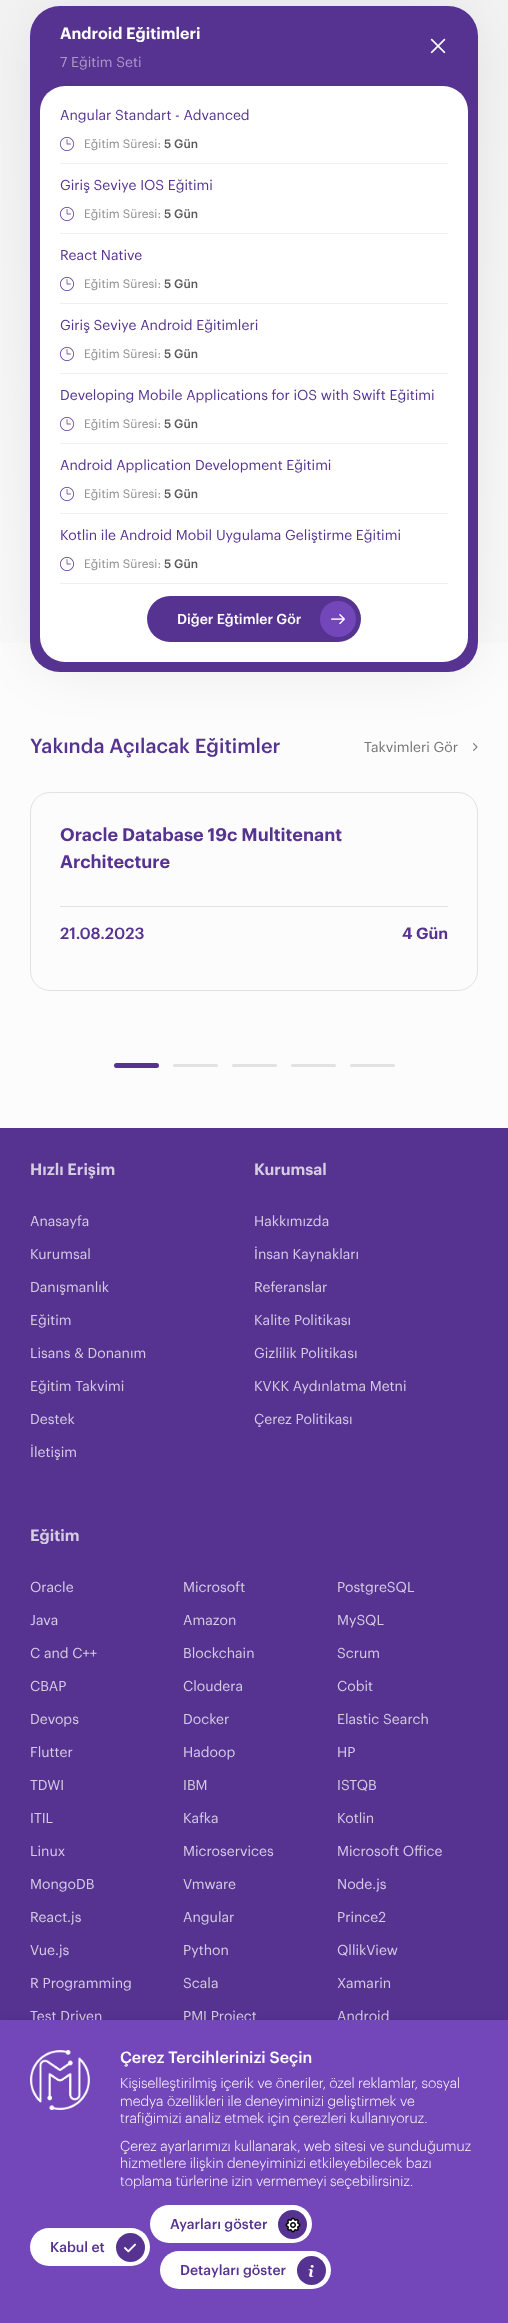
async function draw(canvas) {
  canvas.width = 508
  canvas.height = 2323
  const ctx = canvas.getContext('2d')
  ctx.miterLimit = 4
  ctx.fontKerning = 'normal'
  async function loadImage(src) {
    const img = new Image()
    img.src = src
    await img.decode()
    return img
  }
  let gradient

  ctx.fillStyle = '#fcfcfc'
  ctx.fillRect(0, 0, 508, 2323)
  gradient = ctx.createLinearGradient(254, 1068, 254, -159)
  gradient.addColorStop(0, '#fefefe')
  gradient.addColorStop(1, '#f1f1f1')
  ctx.fillStyle = gradient
  ctx.fillRect(0, 0, 508, 643)
  ctx.fillStyle = '#0000001a'
  ctx.filter = 'blur(30px)'
  ctx.beginPath()
  ctx.roundRect(40, 16, 428, 646, 20)
  ctx.fill()
  ctx.filter = 'none'
  ctx.fillStyle = '#573391'
  ctx.beginPath()
  ctx.roundRect(30, 6, 448, 666, 30)
  ctx.fill()
  ctx.font = '600 16px Graphik'
  ctx.fillStyle = '#fff'
  ctx.fillText('Android Eğitimleri', 60, 39)
  ctx.font = '14px Graphik'
  ctx.fillStyle = '#ab99c8'
  ctx.fillText('7 Eğitim Seti', 60, 67)
  ctx.drawImage(await loadImage('image0.png'), 430, 38, 16, 16)
  ctx.fillStyle = '#fff'
  ctx.beginPath()
  ctx.roundRect(40, 86, 428, 576, 25)
  ctx.fill()
  ctx.fillStyle = '#573391'
  ctx.fillText('Angular Standart - Advanced', 60, 120)
  ctx.drawImage(await loadImage('image1.png'), 60, 137, 14, 14)
  ctx.font = '12px Graphik'
  ctx.fillStyle = '#8e8e8e'
  ctx.fillText('Eğitim Süresi:', 84, 148)
  ctx.font = '500 12px Graphik'
  ctx.fillStyle = '#5b5b5b'
  ctx.fillText('5 Gün', 164, 148)
  ctx.fillStyle = '#efefef'
  ctx.fillRect(60, 163, 388, 1)
  ctx.font = '14px Graphik'
  ctx.fillStyle = '#573391'
  ctx.fillText('Giriş Seviye IOS Eğitimi', 60, 190)
  ctx.drawImage(await loadImage('image1.png'), 60, 207, 14, 14)
  ctx.font = '12px Graphik'
  ctx.fillStyle = '#8e8e8e'
  ctx.fillText('Eğitim Süresi:', 84, 218)
  ctx.font = '500 12px Graphik'
  ctx.fillStyle = '#5b5b5b'
  ctx.fillText('5 Gün', 164, 218)
  ctx.fillStyle = '#efefef'
  ctx.fillRect(60, 233, 388, 1)
  ctx.font = '14px Graphik'
  ctx.fillStyle = '#573391'
  ctx.fillText('React Native', 60, 260)
  ctx.drawImage(await loadImage('image1.png'), 60, 277, 14, 14)
  ctx.font = '12px Graphik'
  ctx.fillStyle = '#8e8e8e'
  ctx.fillText('Eğitim Süresi:', 84, 288)
  ctx.font = '500 12px Graphik'
  ctx.fillStyle = '#5b5b5b'
  ctx.fillText('5 Gün', 164, 288)
  ctx.fillStyle = '#efefef'
  ctx.fillRect(60, 303, 388, 1)
  ctx.font = '14px Graphik'
  ctx.fillStyle = '#573391'
  ctx.fillText('Giriş Seviye Android Eğitimleri', 60, 330)
  ctx.drawImage(await loadImage('image1.png'), 60, 347, 14, 14)
  ctx.font = '12px Graphik'
  ctx.fillStyle = '#8e8e8e'
  ctx.fillText('Eğitim Süresi:', 84, 358)
  ctx.font = '500 12px Graphik'
  ctx.fillStyle = '#5b5b5b'
  ctx.fillText('5 Gün', 164, 358)
  ctx.fillStyle = '#efefef'
  ctx.fillRect(60, 373, 388, 1)
  ctx.font = '14px Graphik'
  ctx.fillStyle = '#573391'
  ctx.fillText('Developing Mobile Applications for iOS with Swift Eğitimi', 60, 400)
  ctx.drawImage(await loadImage('image1.png'), 60, 417, 14, 14)
  ctx.font = '12px Graphik'
  ctx.fillStyle = '#8e8e8e'
  ctx.fillText('Eğitim Süresi:', 84, 428)
  ctx.font = '500 12px Graphik'
  ctx.fillStyle = '#5b5b5b'
  ctx.fillText('5 Gün', 164, 428)
  ctx.fillStyle = '#efefef'
  ctx.fillRect(60, 443, 388, 1)
  ctx.font = '14px Graphik'
  ctx.fillStyle = '#573391'
  ctx.fillText('Android Application Development Eğitimi', 60, 470)
  ctx.drawImage(await loadImage('image1.png'), 60, 487, 14, 14)
  ctx.font = '12px Graphik'
  ctx.fillStyle = '#8e8e8e'
  ctx.fillText('Eğitim Süresi:', 84, 498)
  ctx.font = '500 12px Graphik'
  ctx.fillStyle = '#5b5b5b'
  ctx.fillText('5 Gün', 164, 498)
  ctx.fillStyle = '#efefef'
  ctx.fillRect(60, 513, 388, 1)
  ctx.font = '14px Graphik'
  ctx.fillStyle = '#573391'
  ctx.fillText('Kotlin ile Android Mobil Uygulama Geliştirme Eğitimi', 60, 540)
  ctx.drawImage(await loadImage('image1.png'), 60, 557, 14, 14)
  ctx.font = '12px Graphik'
  ctx.fillStyle = '#8e8e8e'
  ctx.fillText('Eğitim Süresi:', 84, 568)
  ctx.font = '500 12px Graphik'
  ctx.fillStyle = '#5b5b5b'
  ctx.fillText('5 Gün', 164, 568)
  ctx.fillStyle = '#efefef'
  ctx.fillRect(60, 583, 388, 1)
  ctx.fillStyle = '#573391'
  ctx.beginPath()
  ctx.roundRect(147, 596, 214, 46, 23)
  ctx.fill()
  ctx.font = '500 14px Graphik'
  ctx.fillStyle = '#fff'
  ctx.fillText('Diğer Eğtimler Gör', 177, 624)
  ctx.fillStyle = '#7347b9'
  ctx.beginPath()
  ctx.arc(338, 619, 18, 0, 2 * Math.PI)
  ctx.fill()
  ctx.drawImage(await loadImage('image2.png'), 331, 614, 14, 10)
  ctx.font = '500 20px Graphik'
  ctx.fillStyle = '#573391'
  ctx.fillText('Yakında Açılacak Eğitimler', 30, 753)
  ctx.font = '14px Graphik'
  ctx.fillStyle = '#757474'
  ctx.fillText('Takvimleri Gör', 364, 752)
  ctx.drawImage(await loadImage('image3.png'), 473, 743, 5, 8)
  ctx.beginPath()
  ctx.roundRect(30.5, 792.5, 447, 198, 19.5)
  ctx.strokeStyle = '#e2e2e2'
  ctx.stroke()
  ctx.font = '600 18px Graphik'
  ctx.fillStyle = '#573391'
  ctx.fillText('Oracle Database 19c Multitenant', 60, 841)
  ctx.fillText('Architecture', 60, 868)
  ctx.fillStyle = '#e2e2e2'
  ctx.fillRect(60, 906, 388, 1)
  ctx.font = '500 16px Graphik'
  ctx.fillStyle = '#573391'
  ctx.fillText('21.08.2023', 60, 939)
  ctx.font = '600 16px Graphik'
  ctx.fillText('4 Gün', 402, 939)
  ctx.beginPath()
  ctx.roundRect(114, 1063, 45, 5, 2.5)
  ctx.fill()
  ctx.fillStyle = '#e2e2e2'
  ctx.beginPath()
  ctx.roundRect(173, 1064, 45, 3, 1.5)
  ctx.fill()
  ctx.beginPath()
  ctx.roundRect(232, 1064, 45, 3, 1.5)
  ctx.fill()
  ctx.beginPath()
  ctx.roundRect(291, 1064, 45, 3, 1.5)
  ctx.fill()
  ctx.beginPath()
  ctx.roundRect(350, 1064, 45, 3, 1.5)
  ctx.fill()
  ctx.fillStyle = '#573391'
  ctx.fillRect(0, 1128, 508, 892)
  ctx.fillStyle = '#d5cce4'
  ctx.fillText('Hızlı Erişim', 30, 1175)
  ctx.font = '14px Graphik'
  ctx.fillText('Anasayfa', 30, 1226)
  ctx.fillText('Kurumsal', 30, 1259)
  ctx.fillText('Danışmanlık', 30, 1292)
  ctx.fillText('Eğitim', 30, 1325)
  ctx.fillText('Lisans & Donanım', 30, 1358)
  ctx.fillText('Eğitim Takvimi', 30, 1391)
  ctx.fillText('Destek', 30, 1424)
  ctx.fillText('İletişim', 30, 1457)
  ctx.font = '600 16px Graphik'
  ctx.fillText('Kurumsal', 254, 1175)
  ctx.font = '14px Graphik'
  ctx.fillText('Hakkımızda', 254, 1226)
  ctx.fillText('İnsan Kaynakları', 254, 1259)
  ctx.fillText('Referanslar', 254, 1292)
  ctx.fillText('Kalite Politikası', 254, 1325)
  ctx.fillText('Gizlilik Politikası', 254, 1358)
  ctx.fillText('KVKK Aydınlatma Metni', 254, 1391)
  ctx.fillText('Çerez Politikası', 254, 1424)
  ctx.font = '600 16px Graphik'
  ctx.fillText('Eğitim', 30, 1541)
  ctx.font = '14px Graphik'
  ctx.fillText('Oracle', 30, 1592)
  ctx.fillText('Microsoft', 183, 1592)
  ctx.fillText('PostgreSQL', 337, 1592)
  ctx.fillText('Java', 30, 1625)
  ctx.fillText('Amazon', 183, 1625)
  ctx.fillText('MySQL', 337, 1625)
  ctx.fillText('C and C++', 30, 1658)
  ctx.fillText('Blockchain', 183, 1658)
  ctx.fillText('Scrum', 337, 1658)
  ctx.fillText('CBAP', 30, 1691)
  ctx.fillText('Cloudera', 183, 1691)
  ctx.fillText('Cobit', 337, 1691)
  ctx.fillText('Devops', 30, 1724)
  ctx.fillText('Docker', 183, 1724)
  ctx.fillText('Elastic Search', 337, 1724)
  ctx.fillText('Flutter', 30, 1757)
  ctx.fillText('Hadoop', 183, 1757)
  ctx.fillText('HP', 337, 1757)
  ctx.fillText('TDWI', 30, 1790)
  ctx.fillText('IBM', 183, 1790)
  ctx.fillText('ISTQB', 337, 1790)
  ctx.fillText('ITIL', 30, 1823)
  ctx.fillText('Kafka', 183, 1823)
  ctx.fillText('Kotlin', 337, 1823)
  ctx.fillText('Linux', 30, 1856)
  ctx.fillText('Microservices', 183, 1856)
  ctx.fillText('Microsoft Office', 337, 1856)
  ctx.fillText('MongoDB', 30, 1889)
  ctx.fillText('Vmware', 183, 1889)
  ctx.fillText('Node.js', 337, 1889)
  ctx.fillText('React.js', 30, 1922)
  ctx.fillText('Angular', 183, 1922)
  ctx.fillText('Prince2', 337, 1922)
  ctx.fillText('Vue.js', 30, 1955)
  ctx.fillText('Python', 183, 1955)
  ctx.fillText('QllikView', 337, 1955)
  ctx.fillText('R Programming', 30, 1988)
  ctx.fillText('Scala', 183, 1988)
  ctx.fillText('Xamarin', 337, 1988)
  ctx.fillText('Test Driven', 30, 2021)
  ctx.fillText('PMI Project', 183, 2021)
  ctx.fillText('Android', 337, 2021)
  ctx.fillStyle = '#0000001a'
  ctx.filter = 'blur(5px)'
  ctx.beginPath()
  ctx.rect(0, 2020, 508, 303)
  ctx.fill()
  ctx.filter = 'none'
  ctx.fillStyle = '#7347b9'
  ctx.fillRect(0, 2020, 508, 303)
  ctx.drawImage(await loadImage('image4.png'), 30, 2050, 60, 60)
  ctx.font = '500 16px Graphik'
  ctx.fillStyle = '#fff'
  ctx.fillText('Çerez Tercihlerinizi Seçin', 120, 2063)
  ctx.font = '300 14px Graphik'
  ctx.fillText('Kişiselleştirilmiş içerik ve öneriler, özel reklamlar, sosyal', 120, 2088)
  ctx.fillText('medya özellikleri ile deneyiminizi geliştirmek ve', 120, 2106)
  ctx.fillText('trafiğimizi analiz etmek için çerezleri kullanıyoruz.', 120, 2123)
  ctx.fillText('Çerez ayarlarımızı kullanarak, web sitesi ve sunduğumuz', 120, 2151)
  ctx.fillText('hizmetlere ilişkin deneyiminizi etkileyebilecek bazı', 120, 2168)
  ctx.fillText('toplama türlerine izin vermemeyi seçebilirsiniz.', 120, 2186)
  ctx.beginPath()
  ctx.roundRect(30, 2228, 120, 38, 19)
  ctx.fill()
  ctx.font = '500 14px Graphik'
  ctx.fillStyle = '#573391'
  ctx.fillText('Kabul et', 50, 2252)
  ctx.beginPath()
  ctx.arc(130.5, 2247.5, 14.5, 0, 2 * Math.PI)
  ctx.fill()
  ctx.drawImage(await loadImage('image5.png'), 124, 2243, 12, 10)
  ctx.fillStyle = '#fff'
  ctx.beginPath()
  ctx.roundRect(150, 2205, 162, 38, 19)
  ctx.fill()
  ctx.fillStyle = '#573391'
  ctx.fillText('Ayarları göster', 170, 2229)
  ctx.beginPath()
  ctx.arc(292.5, 2224.5, 14.5, 0, 2 * Math.PI)
  ctx.fill()
  ctx.drawImage(await loadImage('image6.png'), 285, 2217, 16, 16)
  ctx.fillStyle = '#fff'
  ctx.beginPath()
  ctx.roundRect(160, 2251, 171, 38, 19)
  ctx.fill()
  ctx.fillStyle = '#573391'
  ctx.fillText('Detayları göster', 180, 2275)
  ctx.beginPath()
  ctx.arc(311.5, 2270.5, 14.5, 0, 2 * Math.PI)
  ctx.fill()
  ctx.drawImage(await loadImage('image7.png'), 308, 2265, 6, 12)
}

draw(document.querySelector('canvas'))
